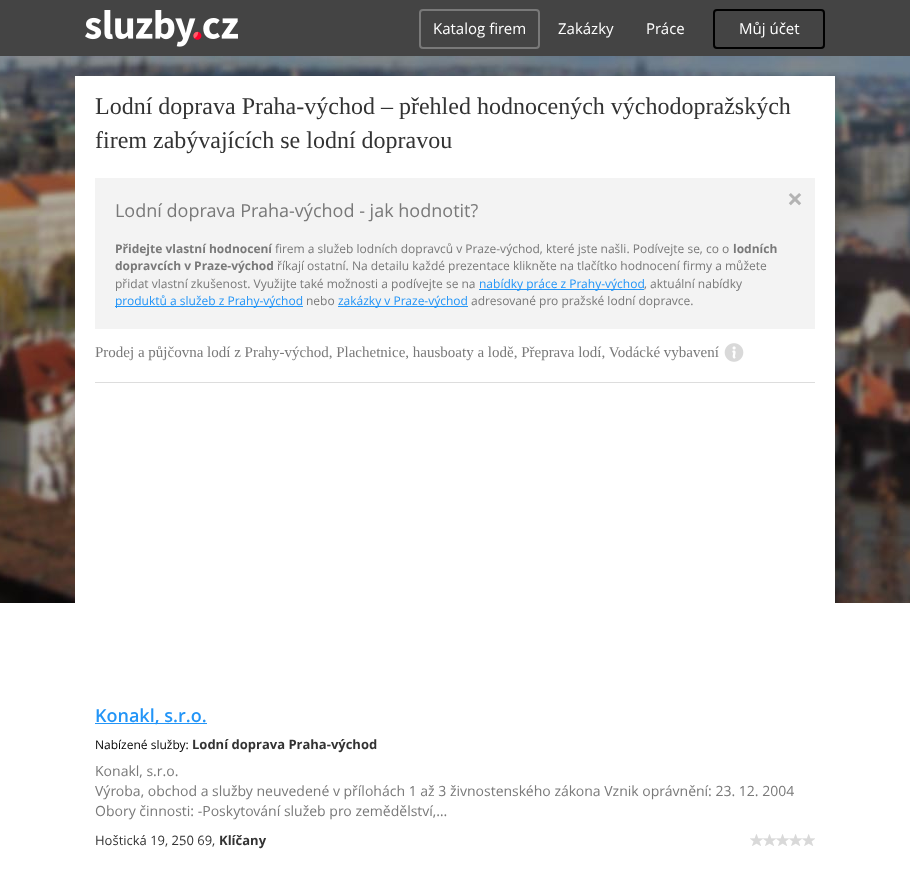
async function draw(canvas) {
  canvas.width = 910
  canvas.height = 870
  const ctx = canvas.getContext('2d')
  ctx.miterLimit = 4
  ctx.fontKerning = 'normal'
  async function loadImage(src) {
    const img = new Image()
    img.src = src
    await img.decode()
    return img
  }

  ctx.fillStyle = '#fff'
  ctx.fillRect(0, 0, 910, 870)
  ctx.fillStyle = '#444'
  ctx.fillRect(0, 0, 910, 56)
  ctx.drawImage(await loadImage('image0.png'), 85, 10, 153, 37)
  ctx.beginPath()
  ctx.roundRect(420, 10, 119, 38, 3)
  ctx.strokeStyle = '#797979'
  ctx.lineWidth = 2
  ctx.stroke()
  ctx.font = '15px Open Sans'
  ctx.fillStyle = '#fff'
  ctx.fillText('Katalog firem', 433, 34)
  ctx.fillText('Zakázky', 558, 34)
  ctx.fillText('Práce', 646, 34)
  ctx.beginPath()
  ctx.roundRect(714, 10, 110, 38, 3)
  ctx.strokeStyle = '#000'
  ctx.stroke()
  ctx.fillText('Můj účet', 739, 34)
  ctx.drawImage(await loadImage('image1.png'), 0, 56, 910, 547)
  ctx.fillRect(75, 76, 760, 527)
  ctx.font = '24px Liberation Serif'
  ctx.fillStyle = '#333'
  ctx.fillText('Lodní doprava Praha-východ – přehled hodnocených východopražských', 95, 114)
  ctx.fillText('firem zabývajících se lodní dopravou', 95, 148)
  ctx.fillStyle = '#ddd'
  ctx.fillRect(95, 382, 720, 1)
  ctx.fillStyle = '#f3f3f3'
  ctx.fillRect(95, 178, 720, 151)
  ctx.font = 'bold 28px Open Sans'
  ctx.fillStyle = '#b3b3b3'
  ctx.fillText('×', 787, 209)
  ctx.font = '18px Open Sans'
  ctx.fillStyle = '#797979'
  ctx.fillText('Lodní doprava Praha-východ - jak hodnotit?', 115, 217)
  ctx.font = 'bold 12px Open Sans'
  ctx.fillText('Přidejte vlastní hodnocení', 115, 253)
  ctx.font = '12px Open Sans'
  ctx.fillText('firem a služeb lodních dopravců v Praze-východ, které jste našli. Podívejte se, co o', 275, 253)
  ctx.font = 'bold 12px Open Sans'
  ctx.fillText('lodních', 733, 253)
  ctx.fillText('dopravcích v Praze-východ', 115, 270)
  ctx.font = '12px Open Sans'
  ctx.fillText('říkají ostatní. Na detailu každé prezentace klikněte na tlačítko hodnocení firmy a můžete', 277, 270)
  ctx.fillText('přidat vlastní zkušenost. Využijte také možnosti a podívejte se na', 115, 288)
  ctx.fillStyle = '#2395f7'
  ctx.fillRect(479, 289, 165, 1)
  ctx.fillText('nabídky práce z Prahy-východ', 479, 288)
  ctx.fillStyle = '#797979'
  ctx.fillText(', aktuální nabídky', 644, 288)
  ctx.fillStyle = '#2395f7'
  ctx.fillRect(115, 306, 188, 1)
  ctx.fillText('produktů a služeb z Prahy-východ', 115, 305)
  ctx.fillStyle = '#797979'
  ctx.fillText('nebo', 306, 305)
  ctx.fillStyle = '#2395f7'
  ctx.fillRect(338, 306, 130, 1)
  ctx.fillText('zakázky v Praze-východ', 338, 305)
  ctx.fillStyle = '#797979'
  ctx.fillText('adresované pro pražské lodní dopravce.', 471, 305)
  ctx.font = '15px Liberation Serif'
  ctx.fillText('Prodej a půjčovna lodí z Prahy-východ, Plachetnice, hausboaty a lodě, Přeprava lodí, Vodácké vybavení', 95, 357)
  ctx.drawImage(await loadImage('image2.png'), 724, 343, 20, 19)
  ctx.fillStyle = '#2395f7'
  ctx.fillRect(95, 723, 112, 1)
  ctx.font = '600 18px Open Sans'
  ctx.fillText('Konakl, s.r.o.', 95, 722)
  ctx.font = '12px Open Sans'
  ctx.fillStyle = '#000'
  ctx.fillText('Nabízené služby:', 95, 749)
  ctx.font = 'bold 13px Open Sans'
  ctx.fillStyle = '#333'
  ctx.fillText('Lodní doprava Praha-východ', 192, 749)
  ctx.font = '14px Open Sans'
  ctx.fillStyle = '#797979'
  ctx.fillText('Konakl, s.r.o.', 95, 776)
  ctx.fillText('Výroba, obchod a služby neuvedené v přílohách 1 až 3 živnostenského zákona Vznik oprávnění: 23. 12. 2004', 95, 796)
  ctx.fillText('Obory činnosti: -Poskytování služeb pro zemědělství,…', 95, 816)
  ctx.font = '13px Open Sans'
  ctx.fillStyle = '#333'
  ctx.fillText('Hoštická 19, 250 69,', 95, 845)
  ctx.font = 'bold 13px Open Sans'
  ctx.fillText('Klíčany', 219, 845)
  ctx.drawImage(await loadImage('image3.png'), 750, 834, 65, 12)
}

draw(document.querySelector('canvas'))
